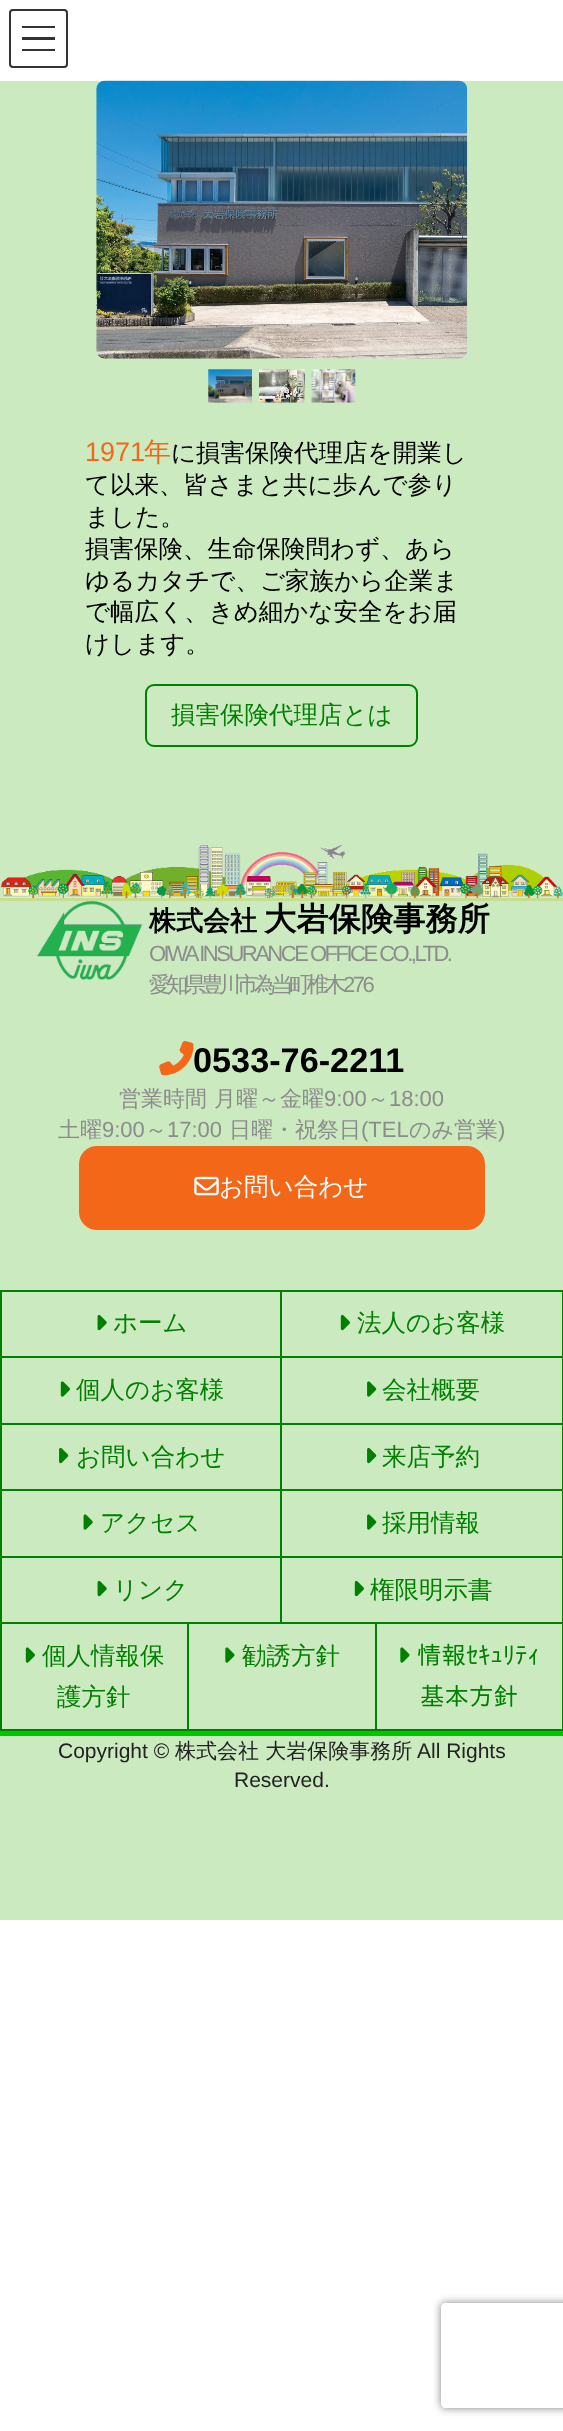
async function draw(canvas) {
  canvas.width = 563
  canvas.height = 2431
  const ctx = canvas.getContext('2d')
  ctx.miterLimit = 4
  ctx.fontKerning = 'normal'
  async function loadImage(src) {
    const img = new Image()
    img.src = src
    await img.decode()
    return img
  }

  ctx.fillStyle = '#fff'
  ctx.fillRect(0, 0, 563, 2431)
  ctx.fillStyle = '#333'
  ctx.fillRect(22, 26, 33, 2)
  ctx.fillRect(22, 37, 33, 3)
  ctx.fillRect(22, 49, 33, 2)
  ctx.beginPath()
  ctx.roundRect(10, 10, 57, 57, 3)
  ctx.strokeStyle = '#333'
  ctx.lineWidth = 2
  ctx.stroke()
  ctx.fillStyle = '#cceac0'
  ctx.fillRect(0, 81, 563, 1648)
  ctx.drawImage(await loadImage('image0.png'), 96, 80, 372, 279)
  ctx.fillStyle = '#ffffff33'
  ctx.fillRect(103, 80, 357, 1)
  ctx.drawImage(await loadImage('image1.png'), 208, 369, 44, 34)
  ctx.drawImage(await loadImage('image2.png'), 259, 369, 46, 34)
  ctx.drawImage(await loadImage('image3.png'), 311, 369, 45, 34)
  ctx.font = '27px Liberation Sans'
  ctx.fillStyle = '#f36719'
  ctx.fillText('1971', 85, 461)
  ctx.font = '500 27px WenQuanYi Zen Hei'
  ctx.fillText('年', 144, 461)
  ctx.font = '500 24.5px WenQuanYi Zen Hei'
  ctx.fillStyle = '#000'
  ctx.fillText('に損害保険代理店を開業し', 171, 461)
  ctx.fillText('て以来、皆さまと共に歩んで参り', 85, 493)
  ctx.fillText('ました。', 85, 525)
  ctx.fillText('損害保険、生命保険問わず、あら', 85, 557)
  ctx.fillText('ゆるカタチで、ご家族から企業ま', 85, 589)
  ctx.fillText('で幅広く、きめ細かな安全をお届', 85, 620)
  ctx.fillText('けします。', 85, 652)
  ctx.beginPath()
  ctx.roundRect(146, 685, 271, 61, 8)
  ctx.strokeStyle = '#008000'
  ctx.stroke()
  ctx.fillStyle = '#008000'
  ctx.fillText('損害保険代理店とは', 171, 723)
  ctx.drawImage(await loadImage('image4.png'), 0, 845, 563, 56)
  ctx.drawImage(await loadImage('image5.png'), 37, 901, 106, 79)
  ctx.font = 'bold 27px WenQuanYi Zen Hei'
  ctx.fillStyle = '#000'
  ctx.fillText('株式会社', 149, 930)
  ctx.font = 'bold 32.25px WenQuanYi Zen Hei'
  ctx.fillText('大岩保険事務所', 264, 930)
  ctx.letterSpacing = '-2.5px'
  ctx.font = '22px Liberation Sans'
  ctx.fillStyle = '#8c8c8c'
  ctx.fillText('OIWA INSURANCE OFFICE CO.,LTD.', 149, 961)
  ctx.letterSpacing = '-4.5px'
  ctx.font = '500 22px WenQuanYi Zen Hei'
  ctx.fillText('愛知県豊川市為当町椎木', 149, 992)
  ctx.letterSpacing = '-2.5px'
  ctx.font = '22px Liberation Sans'
  ctx.fillText('276', 343, 992)
  ctx.drawImage(await loadImage('image6.png'), 159, 1041, 35, 35)
  ctx.letterSpacing = '0px'
  ctx.font = 'bold 34.25px Liberation Sans'
  ctx.fillStyle = '#000'
  ctx.fillText('0533-76-2211', 193, 1072)
  ctx.font = '500 22px WenQuanYi Zen Hei'
  ctx.fillStyle = '#8c8c8c'
  ctx.fillText('営業時間', 119, 1106)
  ctx.fillText('月曜～金曜', 214, 1106)
  ctx.font = '22px Liberation Sans'
  ctx.fillText('9:00', 324, 1106)
  ctx.font = '500 22px WenQuanYi Zen Hei'
  ctx.fillText('～', 367, 1106)
  ctx.font = '22px Liberation Sans'
  ctx.fillText('18:00', 389, 1106)
  ctx.font = '500 22px WenQuanYi Zen Hei'
  ctx.fillText('土曜', 58, 1137)
  ctx.font = '22px Liberation Sans'
  ctx.fillText('9:00', 102, 1137)
  ctx.font = '500 22px WenQuanYi Zen Hei'
  ctx.fillText('～', 145, 1137)
  ctx.font = '22px Liberation Sans'
  ctx.fillText('17:00', 167, 1137)
  ctx.font = '500 22px WenQuanYi Zen Hei'
  ctx.fillText('日曜・祝祭日', 229, 1137)
  ctx.font = '22px Liberation Sans'
  ctx.fillText('(TEL', 361, 1137)
  ctx.font = '500 22px WenQuanYi Zen Hei'
  ctx.fillText('のみ営業', 409, 1137)
  ctx.font = '22px Liberation Sans'
  ctx.fillText(')', 498, 1137)
  ctx.fillStyle = '#f36719'
  ctx.beginPath()
  ctx.roundRect(79, 1146, 406, 84, 18)
  ctx.fill()
  ctx.drawImage(await loadImage('image7.png'), 194, 1176, 25, 20)
  ctx.font = '500 24.5px WenQuanYi Zen Hei'
  ctx.fillStyle = '#fff'
  ctx.fillText('お問い合わせ', 219, 1195)
  ctx.strokeRect(1, 1291, 280, 66)
  ctx.drawImage(await loadImage('image8.png'), 97, 1314, 10, 17)
  ctx.fillStyle = '#008000'
  ctx.fillText('ホーム', 113, 1331)
  ctx.fillRect(282, 1290, 281, 2)
  ctx.fillRect(562, 1290, 1, 441)
  ctx.fillRect(282, 1356, 281, 2)
  ctx.drawImage(await loadImage('image9.png'), 340, 1314, 10, 17)
  ctx.fillText('法人のお客様', 357, 1331)
  ctx.fillRect(280, 1358, 2, 266)
  ctx.fillRect(0, 1423, 563, 2)
  ctx.fillRect(0, 1358, 2, 67)
  ctx.drawImage(await loadImage('image10.png'), 60, 1381, 10, 16)
  ctx.fillText('個人のお客様', 76, 1398)
  ctx.drawImage(await loadImage('image11.png'), 367, 1381, 10, 16)
  ctx.fillText('会社概要', 382, 1398)
  ctx.fillRect(0, 1489, 563, 2)
  ctx.fillRect(0, 1425, 2, 66)
  ctx.drawImage(await loadImage('image12.png'), 59, 1447, 10, 17)
  ctx.fillText('お問い合わせ', 76, 1465)
  ctx.drawImage(await loadImage('image12.png'), 367, 1447, 10, 17)
  ctx.fillText('来店予約', 382, 1465)
  ctx.fillRect(0, 1556, 563, 2)
  ctx.fillRect(0, 1491, 2, 67)
  ctx.drawImage(await loadImage('image13.png'), 83, 1514, 10, 16)
  ctx.fillText('アクセス', 100, 1531)
  ctx.drawImage(await loadImage('image11.png'), 367, 1514, 10, 16)
  ctx.fillText('採用情報', 382, 1531)
  ctx.fillRect(0, 1622, 563, 2)
  ctx.fillRect(0, 1558, 2, 66)
  ctx.drawImage(await loadImage('image8.png'), 97, 1580, 10, 17)
  ctx.fillText('リンク', 113, 1598)
  ctx.drawImage(await loadImage('image9.png'), 354, 1580, 10, 17)
  ctx.fillText('権限明示書', 370, 1598)
  ctx.fillRect(187, 1624, 2, 107)
  ctx.fillRect(0, 1729, 189, 2)
  ctx.fillRect(0, 1624, 2, 107)
  ctx.drawImage(await loadImage('image10.png'), 25, 1647, 10, 16)
  ctx.fillText('個人情報保', 42, 1664)
  ctx.fillText('護方針', 57, 1705)
  ctx.fillRect(375, 1624, 2, 107)
  ctx.fillRect(189, 1729, 374, 2)
  ctx.drawImage(await loadImage('image14.png'), 225, 1647, 10, 16)
  ctx.fillText('勧誘方針', 242, 1664)
  ctx.drawImage(await loadImage('image14.png'), 400, 1647, 10, 16)
  ctx.font = '24.5px IPAPGothic'
  ctx.fillText('情報ｾｷｭﾘﾃｨ', 417, 1664)
  ctx.fillText('基本方針', 420, 1705)
  ctx.fillStyle = '#cceac0'
  ctx.fillRect(0, 1736, 563, 184)
  ctx.fillStyle = '#00c800'
  ctx.fillRect(0, 1731, 563, 5)
  ctx.font = '21px Liberation Sans'
  ctx.fillStyle = '#222'
  ctx.fillText('Copyright ©', 58, 1758)
  ctx.font = '500 21px WenQuanYi Zen Hei'
  ctx.fillText('株式会社 大岩保険事務所', 175, 1758)
  ctx.font = '21px Liberation Sans'
  ctx.fillText('All Rights', 417, 1758)
  ctx.fillText('Reserved.', 234, 1787)
  ctx.save()
  ctx.beginPath()
  ctx.moveTo(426, 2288)
  ctx.lineTo(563, 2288)
  ctx.lineTo(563, 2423)
  ctx.lineTo(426, 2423)
  ctx.closePath()
  ctx.moveTo(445, 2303)
  ctx.lineTo(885, 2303)
  ctx.bezierCurveTo(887, 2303, 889, 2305, 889, 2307)
  ctx.lineTo(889, 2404)
  ctx.bezierCurveTo(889, 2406, 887, 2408, 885, 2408)
  ctx.lineTo(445, 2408)
  ctx.bezierCurveTo(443, 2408, 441, 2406, 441, 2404)
  ctx.lineTo(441, 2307)
  ctx.bezierCurveTo(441, 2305, 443, 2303, 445, 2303)
  ctx.closePath()
  ctx.clip('evenodd')
  ctx.fillStyle = '#808080'
  ctx.filter = 'blur(4.5px)'
  ctx.beginPath()
  ctx.roundRect(441, 2303, 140, 105, 4)
  ctx.fill()
  ctx.filter = 'none'
  ctx.restore()
}

draw(document.querySelector('canvas'))
